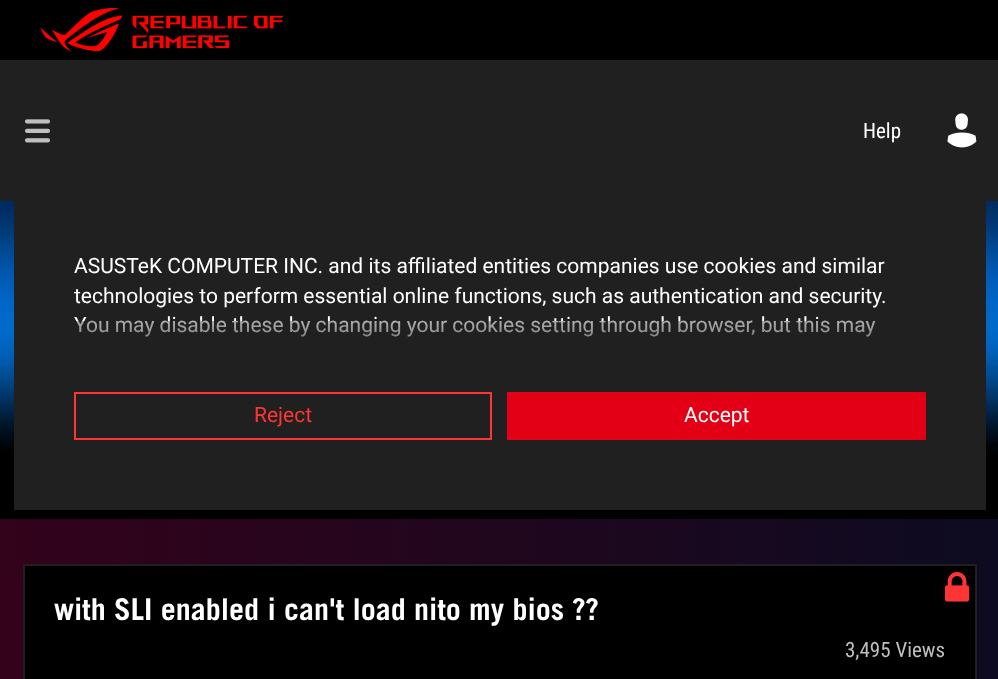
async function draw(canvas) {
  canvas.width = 998
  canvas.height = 679
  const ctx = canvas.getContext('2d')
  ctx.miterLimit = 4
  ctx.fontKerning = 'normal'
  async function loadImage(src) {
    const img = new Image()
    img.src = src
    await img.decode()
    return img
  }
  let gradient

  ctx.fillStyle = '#fff'
  ctx.fillRect(0, 0, 998, 679)
  gradient = ctx.createLinearGradient(0, 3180, 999, 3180)
  gradient.addColorStop(0, '#33021b')
  gradient.addColorStop(1, '#0d0b21')
  ctx.fillStyle = gradient
  ctx.fillRect(0, 519, 998, 160)
  ctx.fillStyle = '#000'
  ctx.fillRect(0, 0, 998, 519)
  ctx.drawImage(await loadImage('image0.png'), 40, 8, 244, 44)
  ctx.fillStyle = '#202020'
  ctx.fillRect(0, 60, 998, 141)
  ctx.drawImage(await loadImage('image1.png'), 24, 119, 26, 24)
  ctx.font = '21px Roboto Condensed'
  ctx.fillStyle = '#fff'
  ctx.fillText('Help', 863, 138)
  ctx.drawImage(await loadImage('image2.png'), 947, 113, 30, 35)
  ctx.drawImage(await loadImage('image3.png'), 0, 201, 998, 252)
  ctx.fillStyle = '#000'
  ctx.beginPath()
  ctx.rect(24, 565, 952, 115)
  ctx.fill()
  ctx.strokeStyle = '#202020'
  ctx.lineWidth = 2
  ctx.stroke()
  ctx.drawImage(await loadImage('image4.png'), 945, 572, 25, 30)
  ctx.font = 'bold 30px Trade Gothic'
  ctx.fillStyle = '#fff'
  ctx.fillText('with SLI enabled i can\'t load nito my bios ??', 54, 620)
  ctx.font = '21px Roboto Condensed'
  ctx.fillStyle = '#bfbfbf'
  ctx.fillText('3,495 Views', 845, 657)
  ctx.fillStyle = '#202020'
  ctx.fillRect(14, 201, 972, 309)
  ctx.font = '21px Roboto'
  ctx.fillStyle = '#fff'
  ctx.fillText('ASUSTeK COMPUTER INC. and its affiliated entities companies use cookies and similar', 74, 273)
  ctx.fillText('technologies to perform essential online functions, such as authentication and security.', 74, 303)
  ctx.fillText('You may disable these by changing your cookies setting through browser, but this may', 74, 332)
  gradient = ctx.createLinearGradient(500, 321, 500, 379)
  gradient.addColorStop(0, '#2020205c')
  gradient.addColorStop(1, '#202020')
  ctx.fillStyle = gradient
  ctx.fillRect(76, 321, 799, 16)
  ctx.strokeStyle = '#ff3535'
  ctx.strokeRect(75, 393, 416, 46)
  ctx.fillStyle = '#ff3535'
  ctx.fillText('Reject', 254, 422)
  ctx.fillStyle = '#e30017'
  ctx.fillRect(507, 392, 419, 48)
  ctx.fillStyle = '#fff'
  ctx.fillText('Accept', 684, 422)
}

draw(document.querySelector('canvas'))
